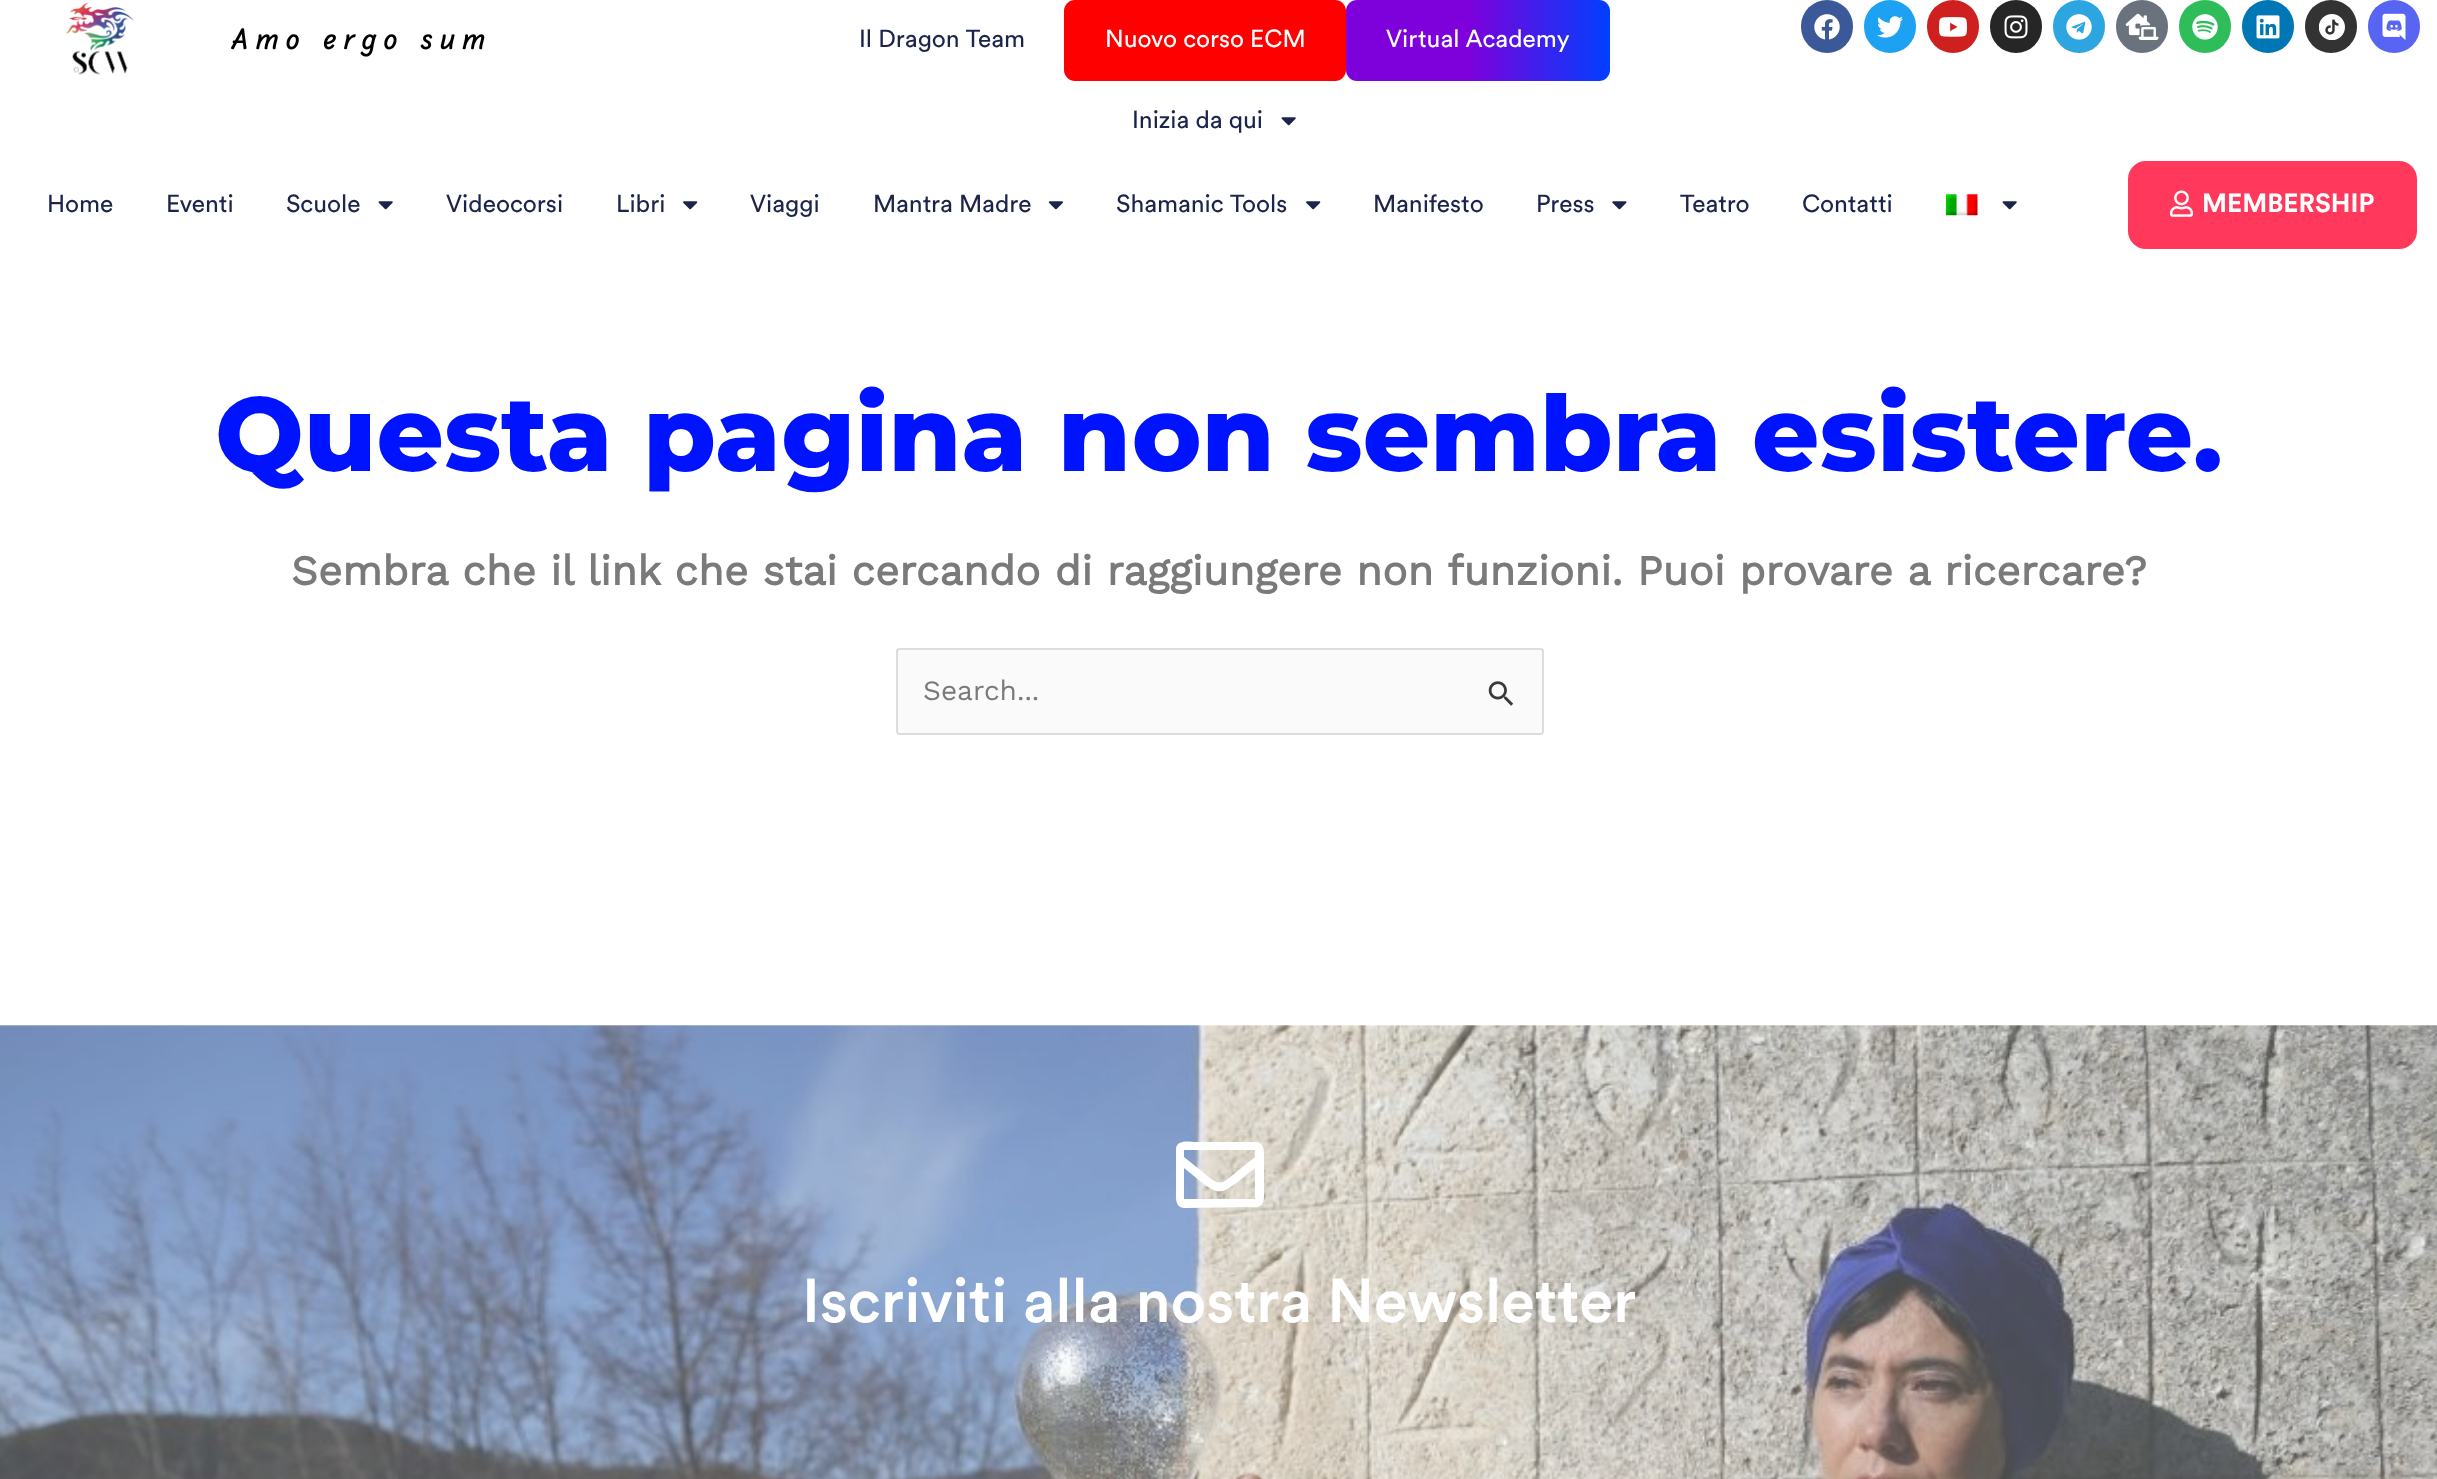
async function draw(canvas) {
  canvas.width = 2437
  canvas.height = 1479
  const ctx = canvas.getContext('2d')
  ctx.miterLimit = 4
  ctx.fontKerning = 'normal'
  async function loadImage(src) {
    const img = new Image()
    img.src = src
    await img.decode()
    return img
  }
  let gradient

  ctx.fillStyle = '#fff'
  ctx.fillRect(0, 0, 2437, 1479)
  ctx.drawImage(await loadImage('image0.png'), 65, 2, 70, 73)
  ctx.letterSpacing = '8.25px'
  ctx.wordSpacing = '2px'
  ctx.font = 'italic bold 29.75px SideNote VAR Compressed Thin'
  ctx.fillStyle = '#000'
  ctx.fillText('Amo ergo sum', 231, 49)
  ctx.letterSpacing = '0px'
  ctx.wordSpacing = '0px'
  ctx.font = '24.5px Circular'
  ctx.fillStyle = '#1c244b'
  ctx.fillText('Il Dragon Team', 859, 47)
  ctx.fillStyle = '#f00'
  ctx.beginPath()
  ctx.roundRect(1064, 0, 282, 81, 11)
  ctx.fill()
  ctx.fillStyle = '#fff'
  ctx.fillText('Nuovo corso ECM', 1105, 47)
  gradient = ctx.createLinearGradient(1346, 40, 1610, 40)
  gradient.addColorStop(0, '#7e00db')
  gradient.addColorStop(0.46, '#7e00db')
  gradient.addColorStop(1, '#003fff')
  ctx.fillStyle = gradient
  ctx.beginPath()
  ctx.roundRect(1346, 0, 264, 81, 11)
  ctx.fill()
  ctx.fillStyle = '#fff'
  ctx.fillText('Virtual Academy', 1386, 47)
  ctx.fillStyle = '#1c244b'
  ctx.fillText('Inizia da qui', 1132, 128)
  ctx.drawImage(await loadImage('image1.png'), 1281, 117, 15, 9)
  ctx.fillStyle = '#3b5998'
  ctx.beginPath()
  ctx.roundRect(1801, 0, 52, 53, 26)
  ctx.fill()
  ctx.drawImage(await loadImage('image2.png'), 1814, 14, 26, 26)
  ctx.fillStyle = '#1da1f2'
  ctx.beginPath()
  ctx.roundRect(1864, 0, 52, 53, 26)
  ctx.fill()
  ctx.drawImage(await loadImage('image3.png'), 1877, 16, 26, 22)
  ctx.fillStyle = '#cd201f'
  ctx.beginPath()
  ctx.roundRect(1927, 0, 52, 53, 26)
  ctx.fill()
  ctx.drawImage(await loadImage('image4.png'), 1939, 17, 28, 20)
  ctx.fillStyle = '#262626'
  ctx.beginPath()
  ctx.roundRect(1990, 0, 52, 53, 26)
  ctx.fill()
  ctx.drawImage(await loadImage('image5.png'), 2004, 15, 24, 24)
  ctx.fillStyle = '#2ca5e0'
  ctx.beginPath()
  ctx.roundRect(2053, 0, 52, 53, 26)
  ctx.fill()
  ctx.drawImage(await loadImage('image6.png'), 2066, 14, 26, 26)
  ctx.fillStyle = '#69727d'
  ctx.beginPath()
  ctx.roundRect(2116, 0, 52, 53, 26)
  ctx.fill()
  ctx.drawImage(await loadImage('image7.png'), 2125, 13, 34, 27)
  ctx.fillStyle = '#2ebd59'
  ctx.beginPath()
  ctx.roundRect(2179, 0, 52, 53, 26)
  ctx.fill()
  ctx.drawImage(await loadImage('image8.png'), 2192, 14, 26, 26)
  ctx.fillStyle = '#0077b5'
  ctx.beginPath()
  ctx.roundRect(2242, 0, 52, 53, 26)
  ctx.fill()
  ctx.drawImage(await loadImage('image9.png'), 2256, 15, 24, 24)
  ctx.fillStyle = '#333'
  ctx.beginPath()
  ctx.roundRect(2305, 0, 52, 53, 26)
  ctx.fill()
  ctx.drawImage(await loadImage('image10.png'), 2319, 14, 26, 26)
  ctx.fillStyle = '#5865f2'
  ctx.beginPath()
  ctx.roundRect(2368, 0, 52, 53, 26)
  ctx.fill()
  ctx.drawImage(await loadImage('image11.png'), 2382, 13, 24, 27)
  ctx.fillStyle = '#1c244b'
  ctx.fillText('Home', 47, 212)
  ctx.fillText('Eventi', 166, 212)
  ctx.fillText('Scuole', 286, 212)
  ctx.drawImage(await loadImage('image1.png'), 378, 201, 15, 9)
  ctx.fillText('Videocorsi', 446, 212)
  ctx.fillText('Libri', 616, 212)
  ctx.drawImage(await loadImage('image12.png'), 683, 201, 15, 9)
  ctx.fillText('Viaggi', 750, 212)
  ctx.fillText('Mantra Madre', 873, 212)
  ctx.drawImage(await loadImage('image13.png'), 1048, 201, 15, 9)
  ctx.fillText('Shamanic Tools', 1116, 212)
  ctx.drawImage(await loadImage('image12.png'), 1306, 201, 15, 9)
  ctx.fillText('Manifesto', 1373, 212)
  ctx.fillText('Press', 1536, 212)
  ctx.drawImage(await loadImage('image14.png'), 1612, 201, 15, 9)
  ctx.fillText('Teatro', 1680, 212)
  ctx.fillText('Contatti', 1802, 212)
  ctx.drawImage(await loadImage('image15.png'), 1946, 194, 32, 22)
  ctx.drawImage(await loadImage('image1.png'), 2002, 201, 15, 9)
  ctx.fillStyle = '#ff385c'
  ctx.beginPath()
  ctx.roundRect(2129, 162, 287, 86, 17)
  ctx.fill()
  ctx.strokeStyle = '#ff385c'
  ctx.lineWidth = 2
  ctx.stroke()
  ctx.drawImage(await loadImage('image16.png'), 2170, 190, 23, 27)
  ctx.font = 'bold 26.25px Circular'
  ctx.fillStyle = '#fff'
  ctx.fillText('MEMBERSHIP', 2202, 212)
  ctx.font = '100 105px Montserrat'
  ctx.fillStyle = '#0013ff'
  ctx.fillText('Questa pagina non sembra esistere.', 215, 471)
  ctx.font = 'bold 42px Work Sans'
  ctx.fillStyle = '#7a7a7a'
  ctx.fillText('Sembra che il link che stai cercando di raggiungere non funzioni. Puoi provare a ricercare?', 291, 585)
  ctx.fillStyle = '#fafafa'
  ctx.beginPath()
  ctx.roundRect(897, 649, 646, 85, 3)
  ctx.fill()
  ctx.strokeStyle = '#ddd'
  ctx.stroke()
  ctx.font = '28px Work Sans'
  ctx.fillStyle = '#7a7a7a'
  ctx.fillText('Search...', 923, 700)
  ctx.drawImage(await loadImage('image17.png'), 1488, 681, 26, 25)
  ctx.drawImage(await loadImage('image18.png'), 0, 1025, 2437, 454)
  ctx.fillStyle = '#fff'
  ctx.beginPath()
  ctx.moveTo(1255, 1142)
  ctx.bezierCurveTo(1265, 1142, 1264, 1152, 1264, 1158)
  ctx.lineTo(1264, 1191)
  ctx.bezierCurveTo(1264, 1197, 1265, 1206, 1257, 1207)
  ctx.lineTo(1184, 1208)
  ctx.bezierCurveTo(1175, 1207, 1176, 1198, 1176, 1191)
  ctx.lineTo(1176, 1148)
  ctx.bezierCurveTo(1178, 1139, 1190, 1142, 1196, 1142)
  ctx.closePath()
  ctx.moveTo(1255, 1150)
  ctx.lineTo(1184, 1150)
  ctx.lineTo(1184, 1157)
  ctx.lineTo(1210, 1178)
  ctx.bezierCurveTo(1218, 1184, 1221, 1184, 1229, 1178)
  ctx.lineTo(1255, 1157)
  ctx.closePath()
  ctx.moveTo(1184, 1199)
  ctx.lineTo(1255, 1199)
  ctx.lineTo(1255, 1168)
  ctx.bezierCurveTo(1216, 1199, 1223, 1199, 1184, 1168)
  ctx.closePath()
  ctx.fill()
  ctx.font = '500 61.25px Circular'
  ctx.fillText('Iscriviti alla nostra Newsletter', 802, 1322)
}

draw(document.querySelector('canvas'))
